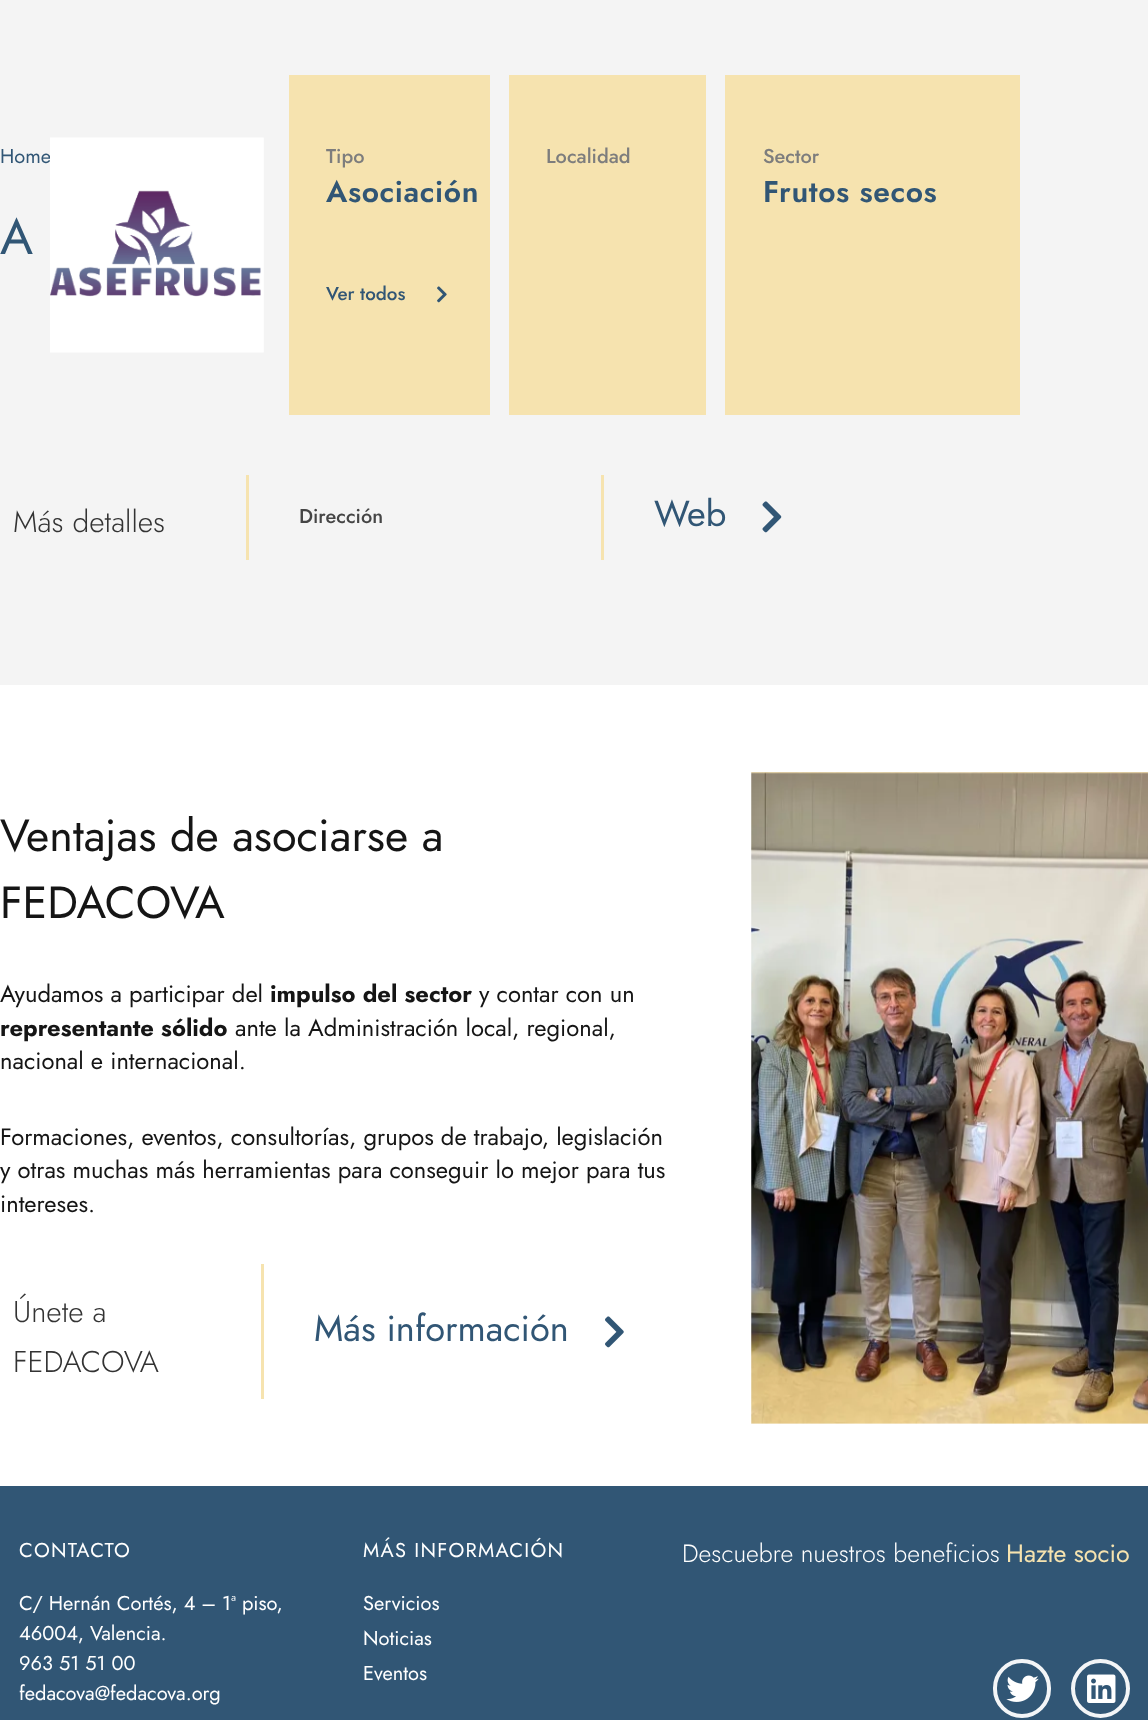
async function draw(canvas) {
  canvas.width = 1148
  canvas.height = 1720
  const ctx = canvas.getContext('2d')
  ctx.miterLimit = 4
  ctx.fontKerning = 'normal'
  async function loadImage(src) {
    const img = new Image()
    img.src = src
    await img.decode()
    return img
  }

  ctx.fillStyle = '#fff'
  ctx.fillRect(0, 0, 1148, 1720)
  ctx.fillStyle = '#f4f4f4'
  ctx.fillRect(0, 0, 1148, 685)
  ctx.font = '20px Jost'
  ctx.fillStyle = '#315675'
  ctx.fillText('Home', 0, 163)
  ctx.drawImage(await loadImage('image0.png'), 50, 137, 214, 216)
  ctx.fillStyle = '#f6e3af'
  ctx.fillRect(289, 75, 201, 340)
  ctx.font = '500 20px Jost'
  ctx.fillStyle = '#7d7d7d'
  ctx.fillText('Tipo', 326, 163)
  ctx.letterSpacing = '0.6px'
  ctx.font = '600 30px Jost'
  ctx.fillStyle = '#315675'
  ctx.fillText('Asociación', 326, 202)
  ctx.letterSpacing = '0px'
  ctx.font = '500 18.75px Jost'
  ctx.fillText('Ver todos', 326, 300)
  ctx.drawImage(await loadImage('image1.png'), 437, 286, 10, 17)
  ctx.fillStyle = '#f6e3af'
  ctx.fillRect(509, 75, 197, 340)
  ctx.font = '500 20px Jost'
  ctx.fillStyle = '#7d7d7d'
  ctx.fillText('Localidad', 546, 163)
  ctx.fillStyle = '#f6e3af'
  ctx.fillRect(725, 75, 295, 340)
  ctx.fillStyle = '#7d7d7d'
  ctx.fillText('Sector', 763, 163)
  ctx.letterSpacing = '0.6px'
  ctx.font = '600 30px Jost'
  ctx.fillStyle = '#315675'
  ctx.fillText('Frutos secos', 763, 202)
  ctx.letterSpacing = '0px'
  ctx.font = '50px Jost'
  ctx.fillText('A', 0, 254)
  ctx.font = '300 30px Jost'
  ctx.fillStyle = '#333'
  ctx.fillText('Más detalles', 13, 532)
  ctx.fillStyle = '#f6e3af'
  ctx.fillRect(246, 475, 3, 85)
  ctx.font = '500 20px Jost'
  ctx.fillStyle = '#454545'
  ctx.fillText('Dirección', 299, 523)
  ctx.fillStyle = '#f6e3af'
  ctx.fillRect(601, 475, 3, 85)
  ctx.font = '36.25px Jost'
  ctx.fillStyle = '#315675'
  ctx.fillText('Web', 654, 526)
  ctx.drawImage(await loadImage('image2.png'), 762, 501, 20, 32)
  ctx.font = '45px Jost'
  ctx.fillStyle = '#151515'
  ctx.fillText('Ventajas de asociarse a', 0, 851)
  ctx.fillText('FEDACOVA', 0, 918)
  ctx.font = '23.75px Jost'
  ctx.fillText('Ayudamos a participar del', 0, 1002)
  ctx.font = 'bold 23.75px Jost'
  ctx.fillText('impulso del sector', 270, 1002)
  ctx.font = '23.75px Jost'
  ctx.fillText('y contar con un', 479, 1002)
  ctx.font = 'bold 23.75px Jost'
  ctx.fillText('representante sólido', 0, 1036)
  ctx.font = '23.75px Jost'
  ctx.fillText('ante la Administración local, regional,', 235, 1036)
  ctx.fillText('nacional e internacional.', 0, 1069)
  ctx.fillText('Formaciones, eventos, consultorías, grupos de trabajo, legislación', 0, 1145)
  ctx.fillText('y otras muchas más herramientas para conseguir lo mejor para tus', 0, 1178)
  ctx.fillText('intereses.', 0, 1212)
  ctx.font = '300 30px Jost'
  ctx.fillStyle = '#333'
  ctx.fillText('Únete a', 13, 1322)
  ctx.fillText('FEDACOVA', 13, 1372)
  ctx.fillStyle = '#f6e3af'
  ctx.fillRect(261, 1264, 3, 135)
  ctx.font = '36.25px Jost'
  ctx.fillStyle = '#315675'
  ctx.fillText('Más información', 314, 1341)
  ctx.drawImage(await loadImage('image3.png'), 605, 1316, 19, 32)
  ctx.drawImage(await loadImage('image4.png'), 751, 772, 397, 652)
  ctx.fillRect(0, 1486, 1148, 234)
  ctx.letterSpacing = '1.25px'
  ctx.font = '20px Jost'
  ctx.fillStyle = '#fff'
  ctx.fillText('CONTACTO', 19, 1557)
  ctx.letterSpacing = '0px'
  ctx.fillText('C/ Hernán Cortés, 4 – 1ª piso,', 19, 1610)
  ctx.fillText('46004, Valencia.', 19, 1640)
  ctx.fillText('963 51 51 00', 19, 1670)
  ctx.fillText('fedacova@fedacova.org', 19, 1700)
  ctx.letterSpacing = '1.25px'
  ctx.fillText('MÁS INFORMACIÓN', 363, 1557)
  ctx.letterSpacing = '0px'
  ctx.fillText('Servicios', 363, 1610)
  ctx.fillText('Noticias', 363, 1645)
  ctx.fillText('Eventos', 363, 1680)
  ctx.font = '300 25px Jost'
  ctx.fillText('Descuebre nuestros beneficios', 682, 1562)
  ctx.font = '25px Jost'
  ctx.fillStyle = '#f6e3af'
  ctx.fillText('Hazte socio', 1006, 1562)
  ctx.beginPath()
  ctx.roundRect(995, 1661, 54, 55, 27)
  ctx.strokeStyle = '#f3f5f7'
  ctx.lineWidth = 4
  ctx.stroke()
  ctx.drawImage(await loadImage('image5.png'), 1006, 1675, 33, 27)
  ctx.beginPath()
  ctx.arc(1100.5, 1688.5, 27.5, 0, 2 * Math.PI)
  ctx.stroke()
  ctx.drawImage(await loadImage('image6.png'), 1087, 1674, 29, 29)
}

draw(document.querySelector('canvas'))
